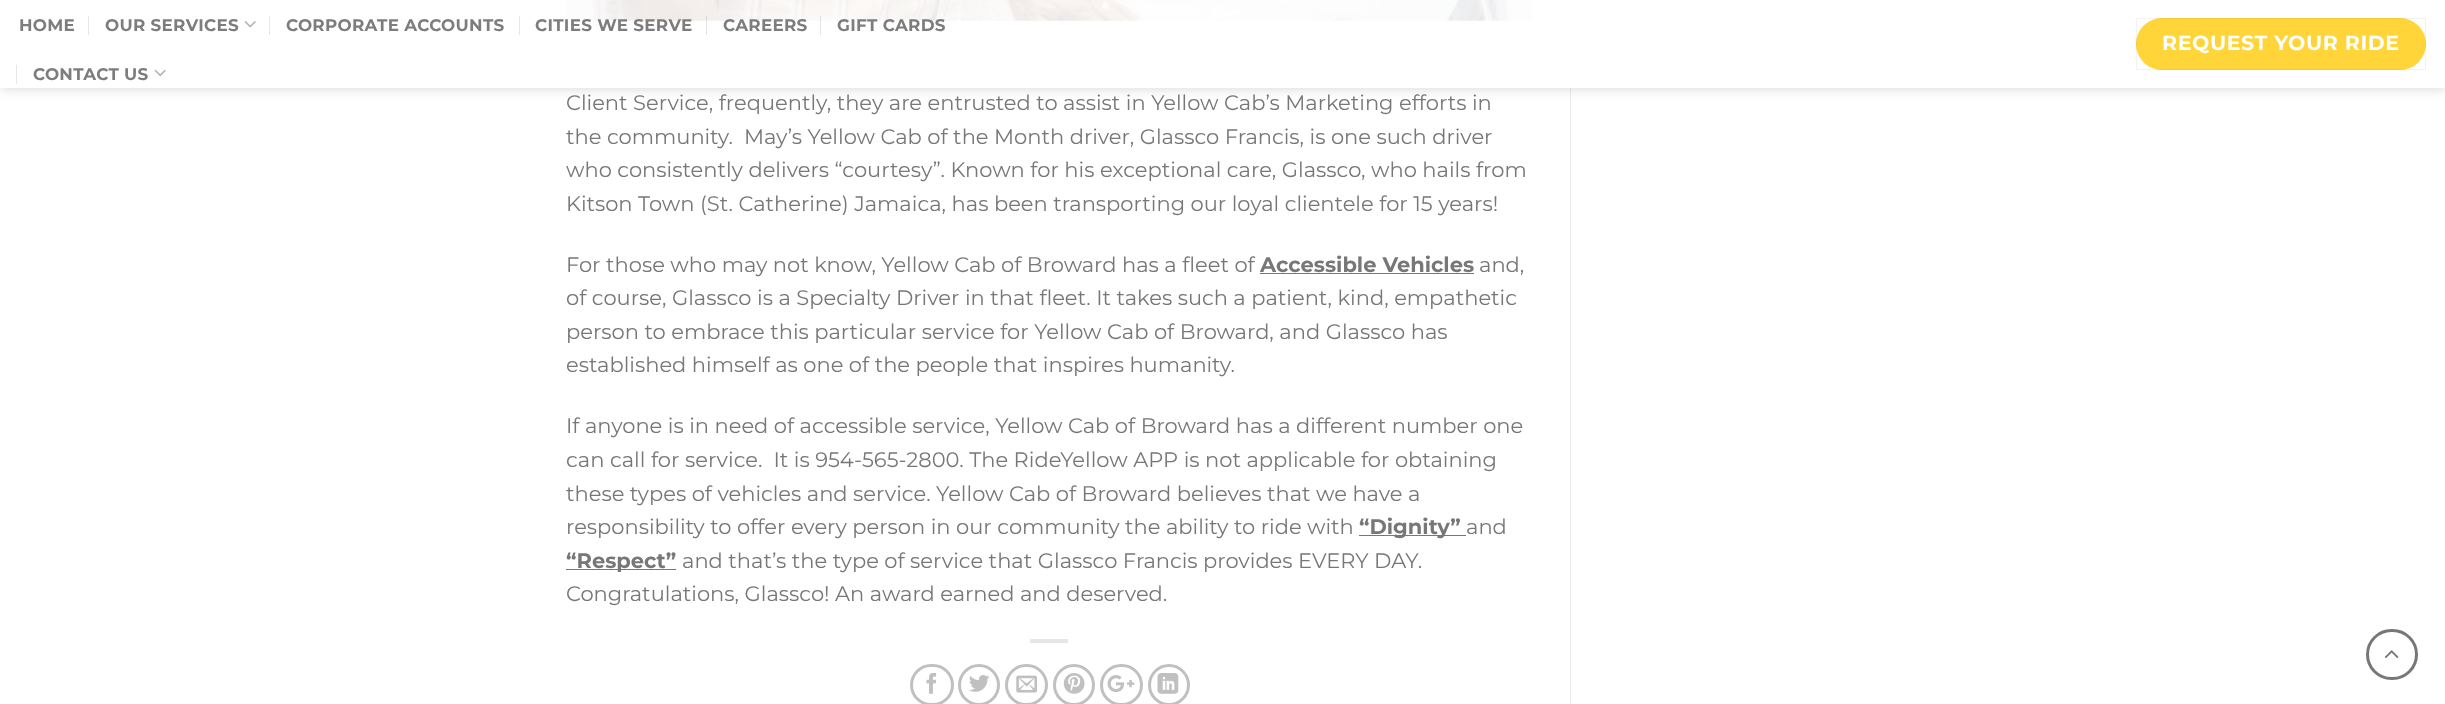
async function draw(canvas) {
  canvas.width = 2445
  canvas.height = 704
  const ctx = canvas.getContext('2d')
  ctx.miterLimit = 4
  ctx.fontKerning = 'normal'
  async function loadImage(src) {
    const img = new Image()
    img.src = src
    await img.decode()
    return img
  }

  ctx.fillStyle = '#fff'
  ctx.fillRect(0, 0, 2445, 704)
  ctx.drawImage(await loadImage('image2.png'), 566, 0, 967, 21)
  ctx.fillStyle = '#ececec'
  ctx.fillRect(1570, 0, 1, 704)
  ctx.save()
  ctx.beginPath()
  ctx.moveTo(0, 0)
  ctx.lineTo(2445, 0)
  ctx.lineTo(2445, 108)
  ctx.lineTo(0, 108)
  ctx.closePath()
  ctx.moveTo(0, 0)
  ctx.lineTo(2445, 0)
  ctx.lineTo(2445, 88)
  ctx.lineTo(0, 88)
  ctx.closePath()
  ctx.clip('evenodd')
  ctx.fillStyle = '#00000026'
  ctx.filter = 'blur(6px)'
  ctx.beginPath()
  ctx.rect(1, 1, 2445, 88)
  ctx.fill()
  ctx.filter = 'none'
  ctx.restore()
  ctx.fillStyle = '#ffffffe6'
  ctx.fillRect(0, 0, 2445, 88)
  ctx.letterSpacing = '0.3px'
  ctx.font = 'bold 16.75px Montserrat'
  ctx.fillStyle = '#7d7d7d'
  ctx.fillText('HOME', 19, 31)
  ctx.fillStyle = '#e6e6e6'
  ctx.fillRect(88, 16, 1, 19)
  ctx.fillStyle = '#7d7d7d'
  ctx.fillText('OUR SERVICES', 105, 31)
  ctx.drawImage(await loadImage('image0.png'), 244, 21, 12, 7)
  ctx.fillStyle = '#e6e6e6'
  ctx.fillRect(269, 16, 1, 19)
  ctx.fillStyle = '#7d7d7d'
  ctx.fillText('CORPORATE ACCOUNTS', 286, 31)
  ctx.fillStyle = '#e6e6e6'
  ctx.fillRect(519, 16, 1, 19)
  ctx.fillStyle = '#7d7d7d'
  ctx.fillText('CITIES WE SERVE', 535, 31)
  ctx.fillStyle = '#0000001a'
  ctx.fillRect(706, 16, 1, 19)
  ctx.fillStyle = '#7d7d7d'
  ctx.fillText('CAREERS', 723, 31)
  ctx.fillStyle = '#0000001a'
  ctx.fillRect(820, 16, 1, 19)
  ctx.fillStyle = '#7d7d7d'
  ctx.fillText('GIFT CARDS', 837, 31)
  ctx.fillStyle = '#e6e6e6'
  ctx.fillRect(16, 65, 1, 19)
  ctx.fillStyle = '#7d7d7d'
  ctx.fillText('CONTACT US', 33, 80)
  ctx.drawImage(await loadImage('image1.png'), 154, 69, 12, 8)
  ctx.fillStyle = '#ffd53a'
  ctx.beginPath()
  ctx.roundRect(2136, 18, 290, 52, 26)
  ctx.fill()
  ctx.strokeStyle = '#0000000d'
  ctx.strokeRect(2136.5, 18.5, 289, 51)
  ctx.letterSpacing = '0.6px'
  ctx.font = 'bold 20.5px Montserrat'
  ctx.fillStyle = '#fff'
  ctx.fillText('REQUEST YOUR RIDE', 2162, 50)
  ctx.letterSpacing = '0px'
  ctx.font = '21px Montserrat'
  ctx.fillStyle = '#777'
  ctx.fillText('Client Service, frequently, they are entrusted to assist in Yellow Cab’s Marketing efforts in', 566, 110)
  ctx.fillText('the community.  May’s Yellow Cab of the Month driver, Glassco Francis, is one such driver', 566, 144)
  ctx.fillText('who consistently delivers “courtesy”. Known for his exceptional care, Glassco, who hails from', 566, 177)
  ctx.fillText('Kitson Town (St. Catherine) Jamaica, has been transporting our loyal clientele for 15 years!', 566, 211)
  ctx.fillText('For those who may not know, Yellow Cab of Broward has a fleet of', 566, 272)
  ctx.font = 'bold 21px Montserrat'
  ctx.fillText('Accessible Vehicles', 1260, 272)
  ctx.fillRect(1260, 273, 214, 1)
  ctx.font = '21px Montserrat'
  ctx.fillText('and,', 1479, 272)
  ctx.fillText('of course, Glassco is a Specialty Driver in that fleet. It takes such a patient, kind, empathetic', 566, 305)
  ctx.fillText('person to embrace this particular service for Yellow Cab of Broward, and Glassco has', 566, 339)
  ctx.fillText('established himself as one of the people that inspires humanity.', 566, 372)
  ctx.fillText('If anyone is in need of accessible service, Yellow Cab of Broward has a different number one', 566, 433)
  ctx.fillText('can call for service.  It is 954-565-2800. The RideYellow APP is not applicable for obtaining', 566, 467)
  ctx.fillText('these types of vehicles and service. Yellow Cab of Broward believes that we have a', 566, 501)
  ctx.fillText('responsibility to offer every person in our community the ability to ride with', 566, 534)
  ctx.fillRect(1359, 535, 107, 1)
  ctx.font = 'bold 21px Montserrat'
  ctx.fillText('“Dignity”', 1359, 534)
  ctx.font = '21px Montserrat'
  ctx.fillText('and', 1466, 534)
  ctx.fillRect(566, 569, 110, 1)
  ctx.font = 'bold 21px Montserrat'
  ctx.fillText('“Respect”', 566, 568)
  ctx.font = '21px Montserrat'
  ctx.fillText('and that’s the type of service that Glassco Francis provides EVERY DAY.', 682, 568)
  ctx.fillText('Congratulations, Glassco! An award earned and deserved.', 566, 601)
  ctx.fillStyle = '#e6e6e6'
  ctx.fillRect(1030, 639, 38, 4)
  ctx.beginPath()
  ctx.roundRect(911.5, 665.5, 41, 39, 19.5)
  ctx.strokeStyle = '#c0c0c0'
  ctx.lineWidth = 3
  ctx.stroke()
  ctx.drawImage(await loadImage('image3.png'), 926, 673, 11, 21)
  ctx.beginPath()
  ctx.arc(979, 685, 19.5, 0, 2 * Math.PI)
  ctx.stroke()
  ctx.drawImage(await loadImage('image4.png'), 969, 675, 21, 17)
  ctx.beginPath()
  ctx.roundRect(1006.5, 665.5, 40, 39, 19.5)
  ctx.stroke()
  ctx.drawImage(await loadImage('image5.png'), 1016, 675, 21, 18)
  ctx.beginPath()
  ctx.arc(1074, 685, 19.5, 0, 2 * Math.PI)
  ctx.stroke()
  ctx.drawImage(await loadImage('image6.png'), 1063, 673, 22, 21)
  ctx.beginPath()
  ctx.roundRect(1101.5, 665.5, 40, 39, 19.5)
  ctx.stroke()
  ctx.drawImage(await loadImage('image7.png'), 1107, 675, 28, 17)
  ctx.beginPath()
  ctx.arc(1169, 685, 19.5, 0, 2 * Math.PI)
  ctx.stroke()
  ctx.drawImage(await loadImage('image8.png'), 1157, 673, 22, 21)
  ctx.beginPath()
  ctx.roundRect(2367.5, 630.5, 49, 48, 24)
  ctx.strokeStyle = '#777'
  ctx.stroke()
  ctx.drawImage(await loadImage('image9.png'), 2384, 650, 15, 8)
}

draw(document.querySelector('canvas'))
